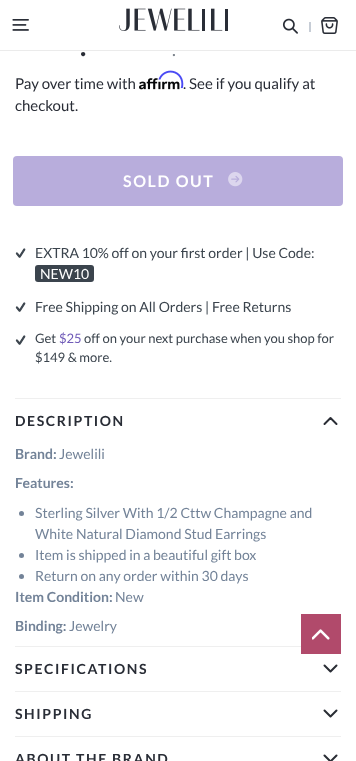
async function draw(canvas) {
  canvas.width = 356
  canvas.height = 761
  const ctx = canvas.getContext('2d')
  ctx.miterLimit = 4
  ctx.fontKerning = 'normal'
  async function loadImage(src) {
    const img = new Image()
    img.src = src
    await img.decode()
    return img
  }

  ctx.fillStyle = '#fff'
  ctx.fillRect(0, 0, 356, 761)
  ctx.fillStyle = '#ebebeb'
  ctx.fillRect(0, 50, 356, 1)
  ctx.drawImage(await loadImage('image0.png'), 12, 19, 17, 12)
  ctx.drawImage(await loadImage('image1.png'), 119, 8, 109, 23)
  ctx.drawImage(await loadImage('image2.png'), 282, 18, 16, 16)
  ctx.fillStyle = '#c7cdd6'
  ctx.fillRect(309, 22, 2, 10)
  ctx.drawImage(await loadImage('image3.png'), 321, 17, 17, 17)
  ctx.font = 'bold 28px Lato'
  ctx.fillStyle = '#292d36'
  ctx.fillText('.', 80, 56)
  ctx.font = '18px Lato'
  ctx.fillStyle = '#798089'
  ctx.fillText('.', 172, 56)
  ctx.font = '15px Lato'
  ctx.fillStyle = '#292d36'
  ctx.fillText('Pay over time with', 15, 89)
  ctx.drawImage(await loadImage('image5.png'), 139, 78, 41, 12)
  ctx.fillText('. See if you qualify at', 183, 89)
  ctx.drawImage(await loadImage('image4.png'), 158, 70, 26, 19)
  ctx.fillText('checkout.', 15, 111)
  ctx.fillStyle = '#b8addc'
  ctx.beginPath()
  ctx.roundRect(13, 156, 330, 50, 4)
  ctx.fill()
  ctx.letterSpacing = '1.6px'
  ctx.font = 'bold 16px Lato'
  ctx.fillStyle = '#fff'
  ctx.fillText('SOLD OUT', 123, 187)
  ctx.drawImage(await loadImage('image6.png'), 228, 172, 15, 15)
  ctx.drawImage(await loadImage('image7.png'), 15, 248, 11, 10)
  ctx.letterSpacing = '0px'
  ctx.font = '14px Lato'
  ctx.fillStyle = '#3b444d'
  ctx.fillText('EXTRA 10% off on your first order | Use Code:', 35, 258)
  ctx.beginPath()
  ctx.roundRect(35, 265, 59, 17, 3)
  ctx.fill()
  ctx.fillStyle = '#fff'
  ctx.fillText('NEW10', 40, 279)
  ctx.drawImage(await loadImage('image7.png'), 15, 302, 11, 10)
  ctx.fillStyle = '#3b444d'
  ctx.fillText('Free Shipping on All Orders | Free Returns', 35, 312)
  ctx.drawImage(await loadImage('image7.png'), 15, 335, 11, 10)
  ctx.font = '13px Lato'
  ctx.fillText('Get', 35, 343)
  ctx.fillStyle = '#705bb8'
  ctx.fillText('$25', 59, 343)
  ctx.fillStyle = '#3b444d'
  ctx.fillText('off on your next purchase when you shop for', 84, 343)
  ctx.fillText('$149 & more.', 35, 362)
  ctx.fillStyle = '#efefef'
  ctx.fillRect(15, 398, 326, 1)
  ctx.letterSpacing = '1.6px'
  ctx.font = 'bold 14px Lato'
  ctx.fillStyle = '#292d36'
  ctx.fillText('DESCRIPTION', 15, 426)
  ctx.beginPath()
  ctx.moveTo(324.5, 424)
  ctx.lineTo(330.5, 418)
  ctx.moveTo(336.5, 424)
  ctx.lineTo(330.5, 418)
  ctx.strokeStyle = '#2a2d35'
  ctx.lineWidth = 2
  ctx.lineCap = 'round'
  ctx.stroke()
  ctx.fillStyle = '#efefef'
  ctx.fillRect(15, 646, 286, 1)
  ctx.letterSpacing = '0px'
  ctx.fillStyle = '#738398'
  ctx.fillText('Brand:', 15, 459)
  ctx.font = '14px Lato'
  ctx.fillText('Jewelili', 59, 459)
  ctx.font = 'bold 14px Lato'
  ctx.fillText('Features:', 15, 488)
  ctx.beginPath()
  ctx.arc(21.5, 513.5, 2.5, 0, 2 * Math.PI)
  ctx.fill()
  ctx.font = '14px Lato'
  ctx.fillText('Sterling Silver With 1/2 Cttw Champagne and', 35, 518)
  ctx.fillText('White Natural Diamond Stud Earrings', 35, 539)
  ctx.beginPath()
  ctx.arc(21.5, 555.5, 2.5, 0, 2 * Math.PI)
  ctx.fill()
  ctx.fillText('Item is shipped in a beautiful gift box', 35, 560)
  ctx.beginPath()
  ctx.arc(21.5, 576.5, 2.5, 0, 2 * Math.PI)
  ctx.fill()
  ctx.fillText('Return on any order within 30 days', 35, 581)
  ctx.font = 'bold 14px Lato'
  ctx.fillText('Item Condition:', 15, 602)
  ctx.font = '14px Lato'
  ctx.fillText('New', 115, 602)
  ctx.font = 'bold 14px Lato'
  ctx.fillText('Binding:', 15, 631)
  ctx.font = '14px Lato'
  ctx.fillText('Jewelry', 69, 631)
  ctx.fillStyle = '#efefef'
  ctx.fillRect(15, 691, 326, 1)
  ctx.letterSpacing = '1.6px'
  ctx.font = 'bold 14px Lato'
  ctx.fillStyle = '#292d36'
  ctx.fillText('SPECIFICATIONS', 15, 674)
  ctx.beginPath()
  ctx.moveTo(324.5, 665.5)
  ctx.lineTo(330.5, 671.5)
  ctx.moveTo(336.5, 665.5)
  ctx.lineTo(330.5, 671.5)
  ctx.moveTo(324.5, 710.5)
  ctx.lineTo(330.5, 716.5)
  ctx.moveTo(336.5, 710.5)
  ctx.lineTo(330.5, 716.5)
  ctx.stroke()
  ctx.fillStyle = '#efefef'
  ctx.fillRect(15, 736, 326, 1)
  ctx.fillStyle = '#292d36'
  ctx.fillText('SHIPPING', 15, 719)
  ctx.fillText('ABOUT THE BRAND', 15, 764)
  ctx.beginPath()
  ctx.moveTo(324.5, 755.5)
  ctx.lineTo(330.5, 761.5)
  ctx.moveTo(336.5, 755.5)
  ctx.lineTo(330.5, 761.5)
  ctx.stroke()
  ctx.fillStyle = '#b14a6b'
  ctx.fillRect(301, 614, 40, 40)
  ctx.drawImage(await loadImage('image8.png'), 312, 629, 18, 11)
}

draw(document.querySelector('canvas'))
